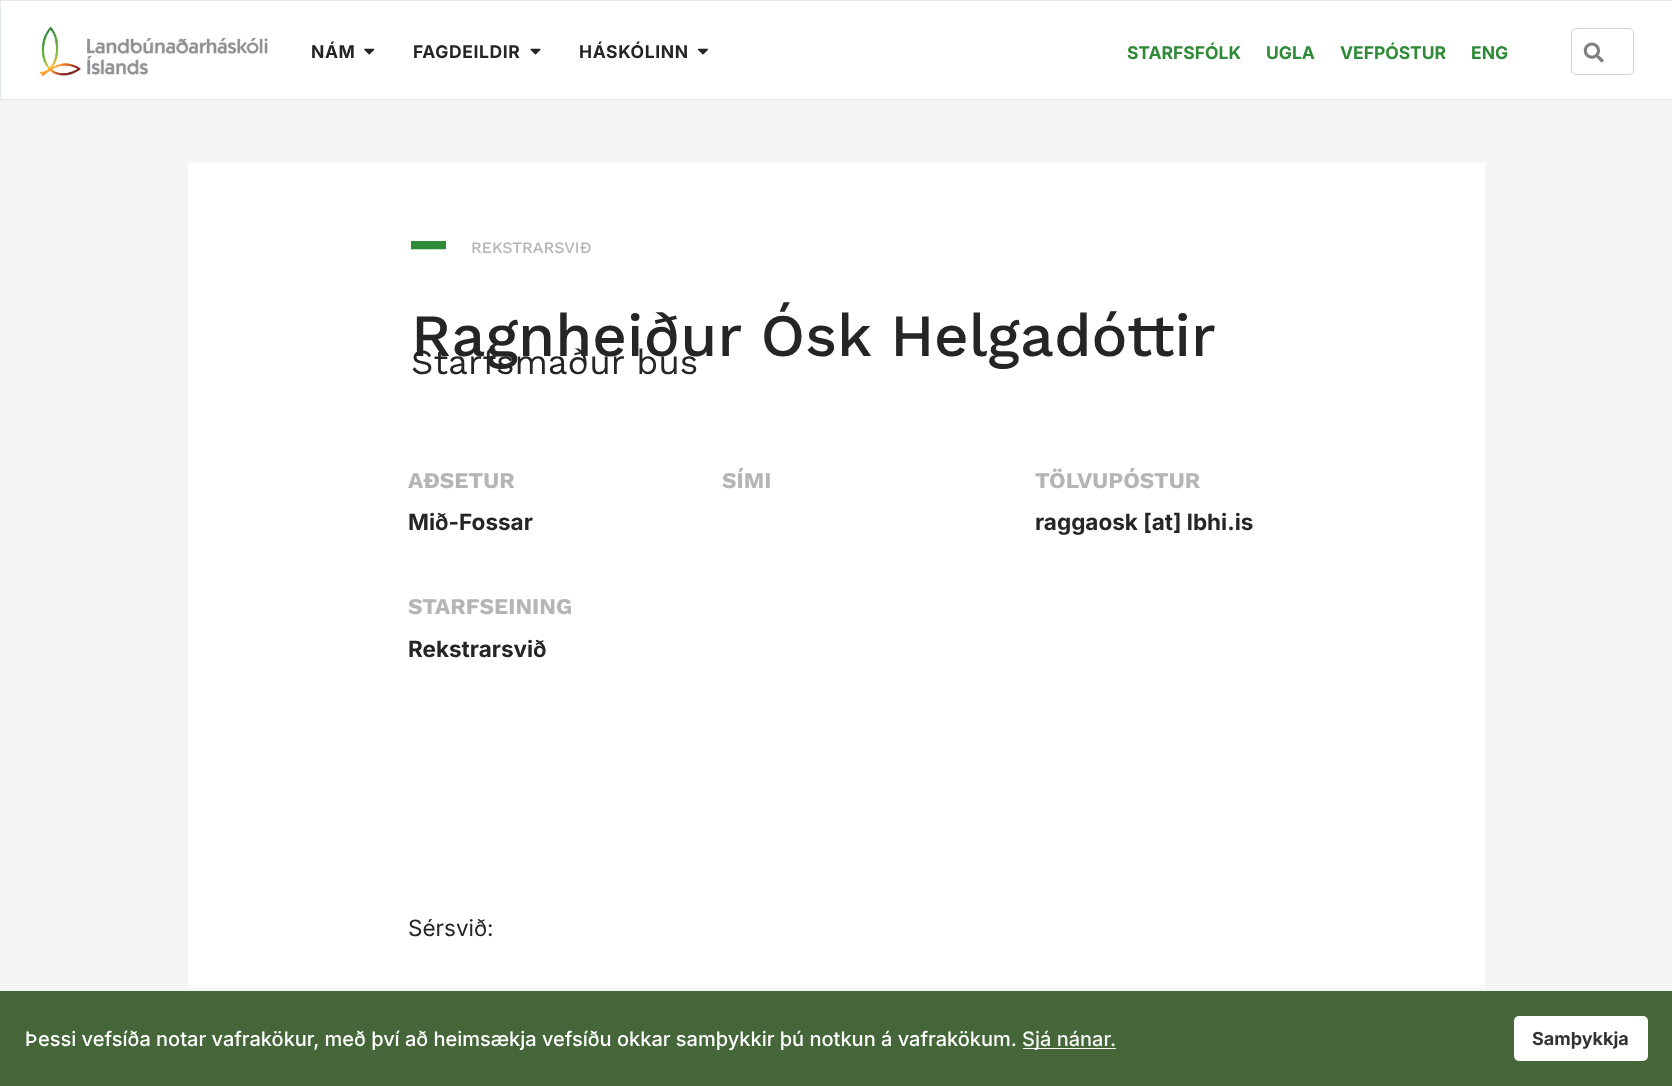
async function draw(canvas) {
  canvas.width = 1672
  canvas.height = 1086
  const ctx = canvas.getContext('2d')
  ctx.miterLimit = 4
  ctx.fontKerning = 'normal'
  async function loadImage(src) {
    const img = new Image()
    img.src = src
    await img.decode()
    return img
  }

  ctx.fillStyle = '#fff'
  ctx.fillRect(0, 0, 1672, 1086)
  ctx.strokeStyle = '#e1e7ec'
  ctx.strokeRect(0.5, 0.5, 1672, 99)
  ctx.drawImage(await loadImage('image0.png'), 39, 26, 229, 51)
  ctx.letterSpacing = '0.6px'
  ctx.font = 'bold 17.5px Inter'
  ctx.fillStyle = '#252525'
  ctx.fillText('NÁM', 311, 58)
  ctx.drawImage(await loadImage('image1.png'), 364, 48, 11, 7)
  ctx.fillText('FAGDEILDIR', 413, 58)
  ctx.drawImage(await loadImage('image2.png'), 530, 48, 11, 7)
  ctx.fillText('HÁSKÓLINN', 579, 58)
  ctx.drawImage(await loadImage('image3.png'), 697, 48, 11, 7)
  ctx.letterSpacing = '0px'
  ctx.fillStyle = '#2e8a37'
  ctx.fillText('STARFSFÓLK', 1127, 59)
  ctx.fillText('UGLA', 1266, 59)
  ctx.fillText('VEFPÓSTUR', 1340, 59)
  ctx.fillText('ENG', 1471, 59)
  ctx.beginPath()
  ctx.roundRect(1571.5, 28.5, 62, 46, 4.5)
  ctx.strokeStyle = '#ced4da'
  ctx.stroke()
  ctx.drawImage(await loadImage('image4.png'), 1583, 42, 21, 21)
  ctx.fillStyle = '#f5f5f5'
  ctx.fillRect(0, 100, 1672, 891)
  ctx.fillStyle = '#fff'
  ctx.fillRect(188, 163, 1297, 825)
  ctx.font = 'bold 70px Inter'
  ctx.fillStyle = '#2e8a37'
  ctx.fillText('–', 411, 266)
  ctx.font = '500 16px Work Sans'
  ctx.fillStyle = '#b5b5b5'
  ctx.fillText('REKSTRARSVIÐ', 471, 253)
  ctx.font = '500 60px Work Sans'
  ctx.fillStyle = '#252525'
  ctx.fillText('Ragnheiður Ósk Helgadóttir', 411, 356)
  ctx.font = '35px Work Sans'
  ctx.fillText('Starfsmaður bús', 411, 374)
  ctx.font = 'bold 22.5px Work Sans'
  ctx.fillStyle = '#b5b5b5'
  ctx.fillText('AÐSETUR', 408, 488)
  ctx.font = 'bold 22.5px Inter'
  ctx.fillStyle = '#252525'
  ctx.fillText('Mið-Fossar', 408, 530)
  ctx.font = 'bold 22.5px Work Sans'
  ctx.fillStyle = '#b5b5b5'
  ctx.fillText('SÍMI', 722, 488)
  ctx.fillText('TÖLVUPÓSTUR', 1035, 488)
  ctx.font = 'bold 22.5px Inter'
  ctx.fillStyle = '#252525'
  ctx.fillText('raggaosk [at] lbhi.is', 1035, 530)
  ctx.font = 'bold 22.5px Work Sans'
  ctx.fillStyle = '#b5b5b5'
  ctx.fillText('STARFSEINING', 408, 614)
  ctx.font = 'bold 22.5px Inter'
  ctx.fillStyle = '#252525'
  ctx.fillText('Rekstrarsvið', 408, 657)
  ctx.font = '22.5px Inter'
  ctx.fillText('Sérsvið:', 408, 936)
  ctx.fillStyle = '#446638'
  ctx.fillRect(0, 991, 1672, 95)
  ctx.font = '500 20px Inter'
  ctx.fillStyle = '#fff'
  ctx.fillText('Þessi vefsíða notar vafrakökur, með því að heimsækja vefsíðu okkar samþykkir þú notkun á vafrakökum.', 25, 1046)
  ctx.fillStyle = '#f5f5f5'
  ctx.fillRect(1023, 1048, 93, 1)
  ctx.fillText('Sjá nánar.', 1022, 1046)
  ctx.fillStyle = '#fff'
  ctx.beginPath()
  ctx.roundRect(1514, 1016, 134, 45, 5)
  ctx.fill()
  ctx.font = 'bold 18px Inter'
  ctx.fillStyle = '#333'
  ctx.fillText('Samþykkja', 1532, 1045)
}

draw(document.querySelector('canvas'))
